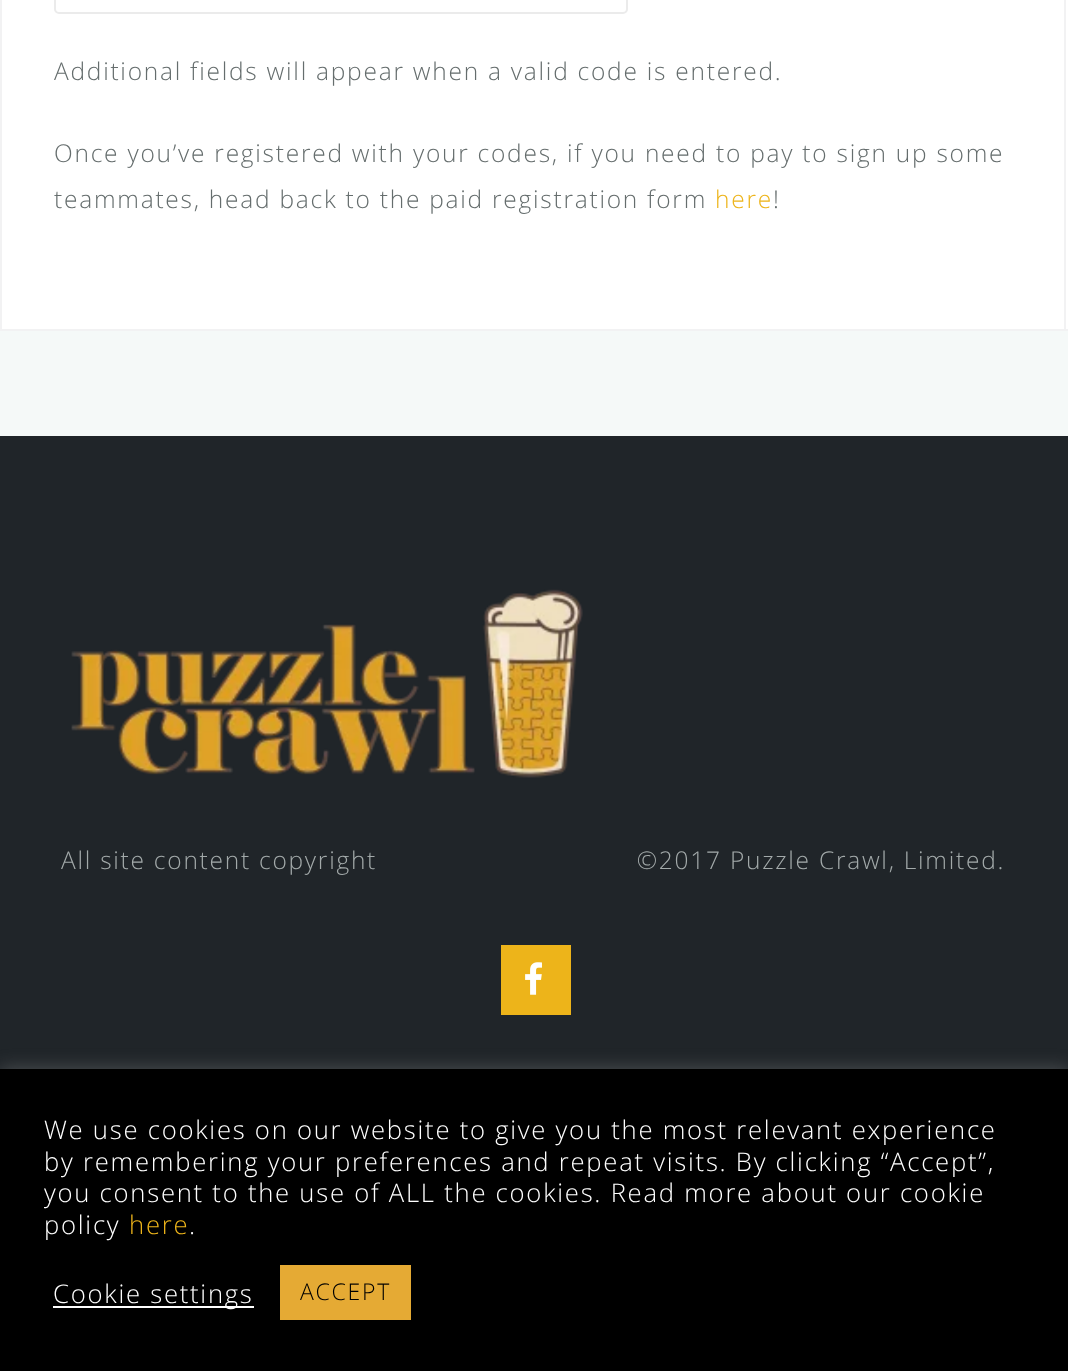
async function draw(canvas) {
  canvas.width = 1068
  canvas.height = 1371
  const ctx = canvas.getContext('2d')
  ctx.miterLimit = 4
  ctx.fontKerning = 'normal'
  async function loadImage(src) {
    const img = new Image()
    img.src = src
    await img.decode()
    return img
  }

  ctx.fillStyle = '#f5f9f8'
  ctx.fillRect(0, 0, 1068, 1371)
  ctx.fillStyle = '#fff'
  ctx.fillRect(1066, 0, 2, 329)
  ctx.fillStyle = '#f2f2f3'
  ctx.fillRect(1066, 329, 2, 2)
  ctx.fillStyle = '#fff'
  ctx.beginPath()
  ctx.rect(1, -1, 1064, 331)
  ctx.fill()
  ctx.strokeStyle = '#f2f2f3'
  ctx.lineWidth = 2
  ctx.stroke()
  ctx.beginPath()
  ctx.roundRect(55, -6, 572, 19, 4)
  ctx.strokeStyle = '#ebebeb'
  ctx.stroke()
  ctx.letterSpacing = '1.75px'
  ctx.font = '300 24.5px Open Sans'
  ctx.fillStyle = '#656d6d'
  ctx.fillText('Additional fields will appear when a valid code is entered.', 54, 80)
  ctx.fillText('Once you’ve registered with your codes, if you need to pay to sign up some', 54, 162)
  ctx.fillText('teammates, head back to the paid registration form', 54, 208)
  ctx.fillStyle = '#edb41a'
  ctx.fillText('here', 715, 208)
  ctx.fillStyle = '#656d6d'
  ctx.fillText('!', 773, 208)
  ctx.fillStyle = '#202529'
  ctx.fillRect(0, 436, 1068, 633)
  ctx.drawImage(await loadImage('image0.png'), 71, 589, 512, 189)
  ctx.fillStyle = '#a3aaaa'
  ctx.fillText('All site content copyright                                ©2017 Puzzle Crawl, Limited.', 61, 869)
  ctx.fillStyle = '#edb41a'
  ctx.fillRect(501, 945, 70, 70)
  ctx.drawImage(await loadImage('image1.png'), 525, 962, 17, 33)
  ctx.fillStyle = '#acabab4d'
  ctx.filter = 'blur(9px)'
  ctx.beginPath()
  ctx.rect(0, 1068, 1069, 302)
  ctx.fill()
  ctx.filter = 'none'
  ctx.fillStyle = '#000'
  ctx.fillRect(0, 1069, 1068, 302)
  ctx.font = '300 25.65px Open Sans'
  ctx.fillStyle = '#fff'
  ctx.fillText('We use cookies on our website to give you the most relevant experience', 44, 1139)
  ctx.fillText('by remembering your preferences and repeat visits. By clicking “Accept”,', 44, 1171)
  ctx.fillText('you consent to the use of ALL the cookies. Read more about our cookie', 44, 1202)
  ctx.fillText('policy', 44, 1234)
  ctx.fillStyle = '#edb41a'
  ctx.fillText('here', 129, 1234)
  ctx.fillStyle = '#fff'
  ctx.fillText('.', 189, 1234)
  ctx.fillRect(53, 1306, 201, 2)
  ctx.fillText('Cookie settings', 53, 1303)
  ctx.fillStyle = '#e5aa34'
  ctx.fillRect(280, 1265, 131, 55)
  ctx.font = '300 23px Open Sans'
  ctx.fillStyle = '#000'
  ctx.fillText('ACCEPT', 300, 1300)
}

draw(document.querySelector('canvas'))
